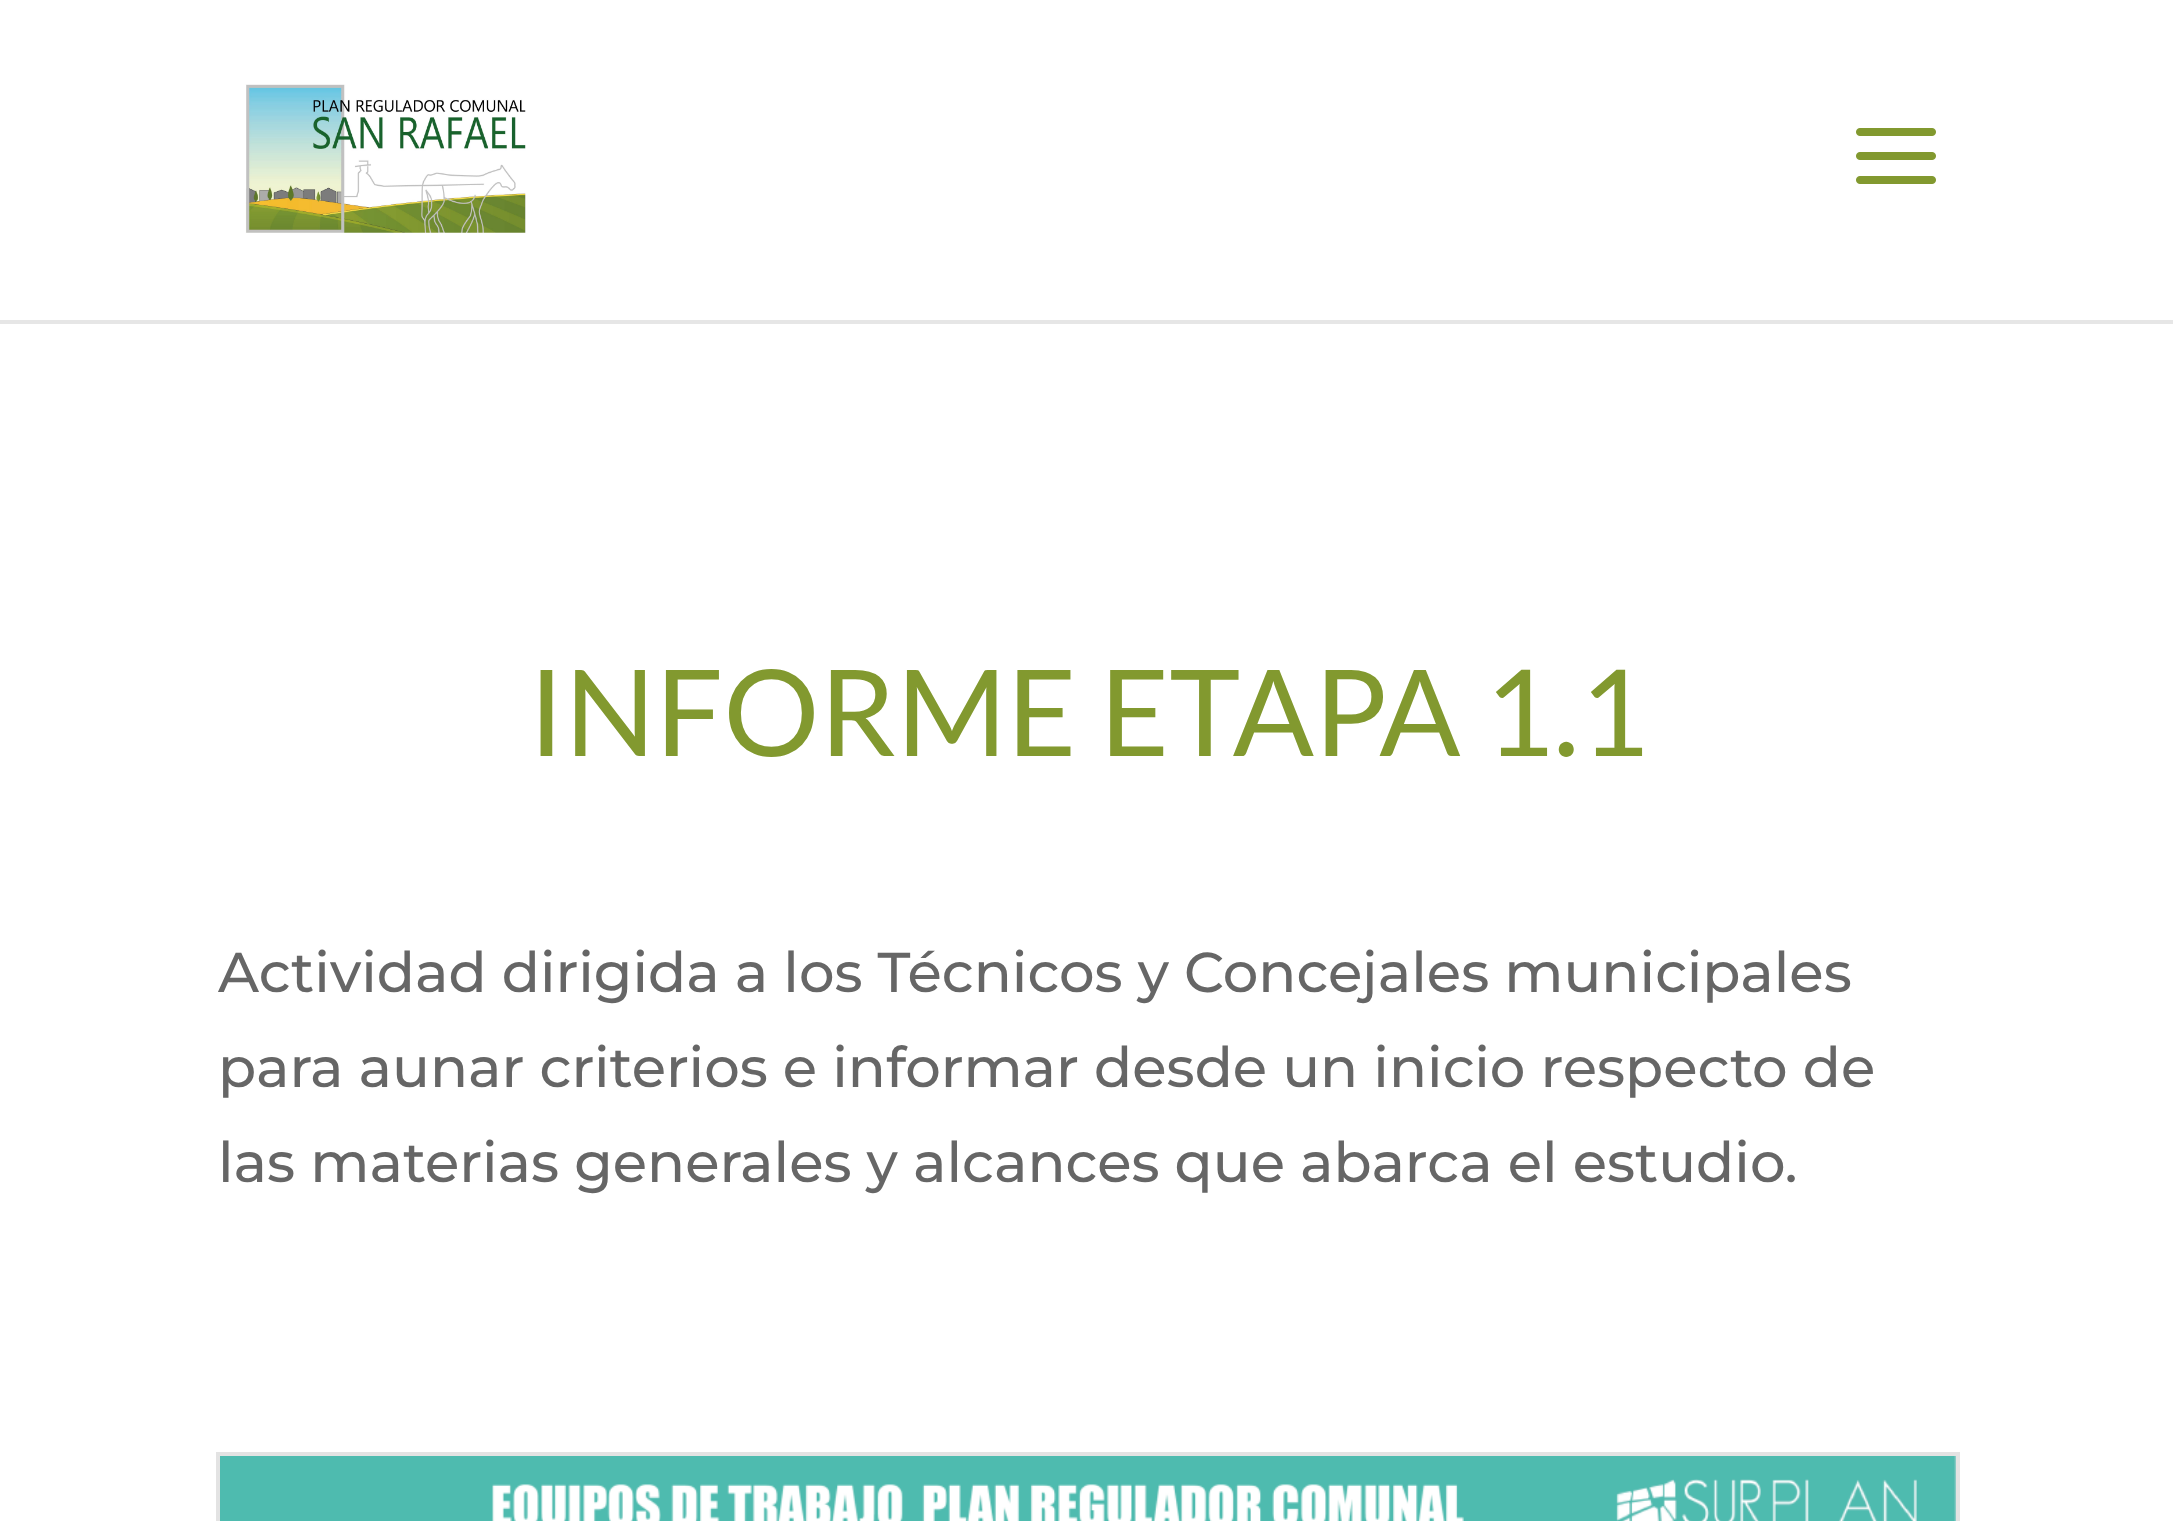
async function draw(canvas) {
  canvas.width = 2173
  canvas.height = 1521
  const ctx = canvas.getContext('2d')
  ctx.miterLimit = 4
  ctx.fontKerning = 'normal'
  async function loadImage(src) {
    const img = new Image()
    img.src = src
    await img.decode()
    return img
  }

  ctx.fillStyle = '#fff'
  ctx.fillRect(0, 0, 2173, 1521)
  ctx.fillStyle = '#e6e6e6'
  ctx.fillRect(0, 320, 2173, 4)
  ctx.drawImage(await loadImage('image0.png'), 245, 84, 281, 149)
  ctx.drawImage(await loadImage('image1.png'), 1856, 128, 80, 56)
  ctx.font = '120px Lato'
  ctx.fillStyle = '#82992f'
  ctx.fillText('INFORME ETAPA 1.1', 528, 756)
  ctx.font = '500 56px Montserrat'
  ctx.fillStyle = '#666'
  ctx.fillText('Actividad dirigida a los Técnicos y Concejales municipales', 218, 992)
  ctx.fillText('para aunar criterios e informar desde un inicio respecto de', 218, 1087)
  ctx.fillText('las materias generales y alcances que abarca el estudio.', 218, 1182)
  ctx.strokeStyle = '#e3e3e3'
  ctx.lineWidth = 4
  ctx.strokeRect(218, 1454, 1740, 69)
  ctx.drawImage(await loadImage('image2.png'), 220, 1456, 1736, 65)
}

draw(document.querySelector('canvas'))
